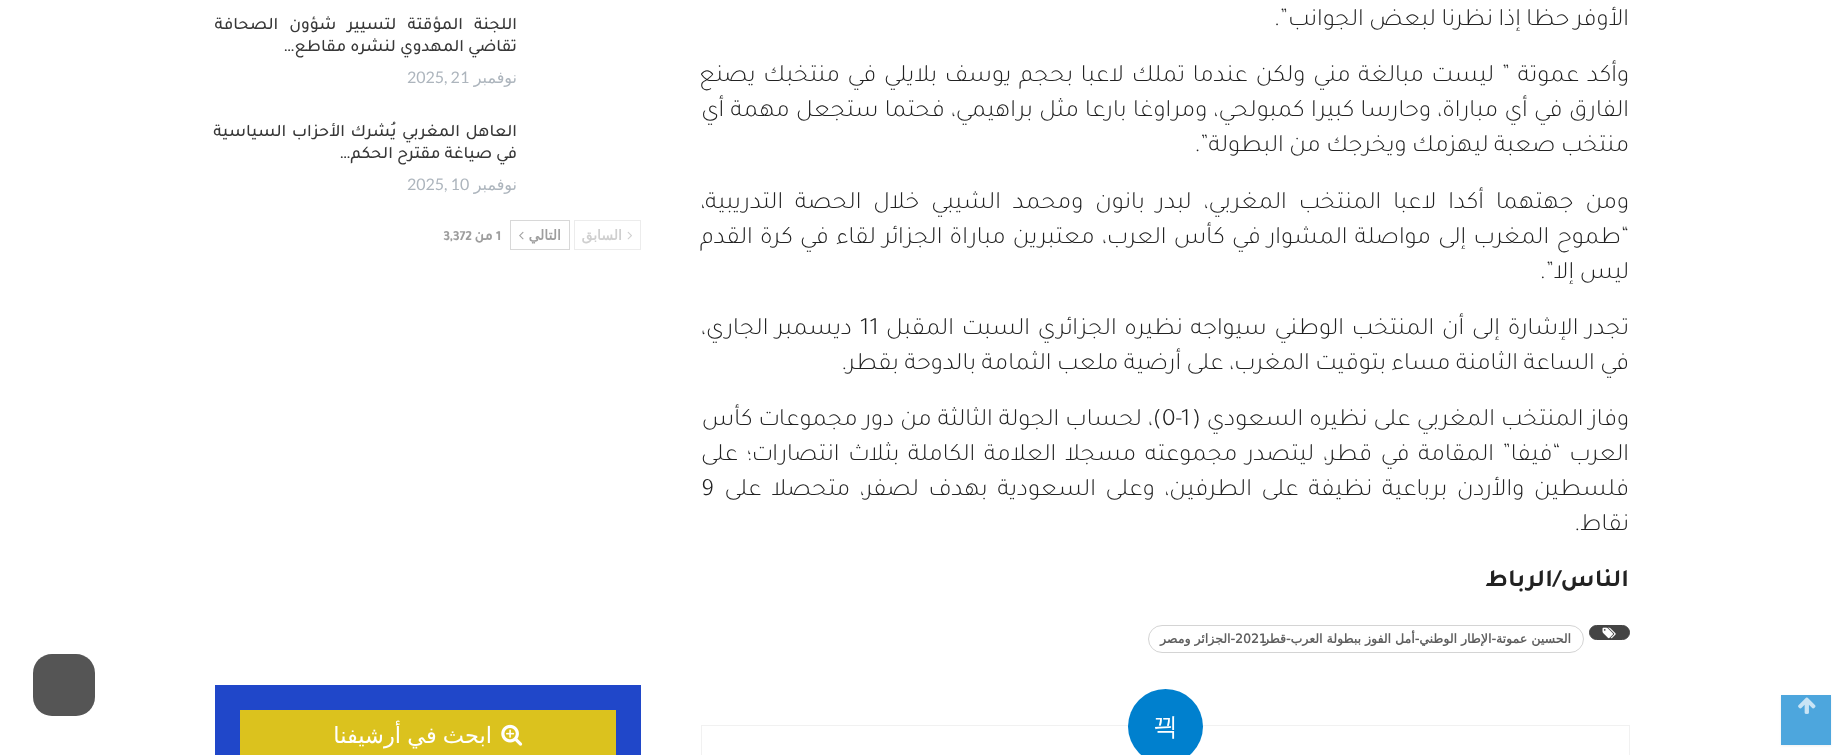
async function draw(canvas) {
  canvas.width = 1843
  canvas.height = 755
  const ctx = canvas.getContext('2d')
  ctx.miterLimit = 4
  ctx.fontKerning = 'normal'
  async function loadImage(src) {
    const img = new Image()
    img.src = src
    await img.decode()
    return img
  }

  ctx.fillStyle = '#fff'
  ctx.fillRect(0, 0, 1843, 755)
  ctx.fillStyle = '#4d4d4d17'
  ctx.filter = 'blur(1px)'
  ctx.beginPath()
  ctx.rect(1781, 696, 50, 50)
  ctx.fill()
  ctx.filter = 'none'
  ctx.fillStyle = '#4da6dd'
  ctx.fillRect(1781, 695, 50, 50)
  ctx.drawImage(await loadImage('image0.png'), 1798, 697, 18, 17)
  ctx.direction = 'rtl'
  ctx.font = '300 25px Tajawal'
  ctx.fillStyle = '#222'
  ctx.fillText('الأوفر حظا إذا نظرنا لبعض الجوانب”.', 1629, 25)
  ctx.wordSpacing = '2.25px'
  ctx.fillText('وأكد عموتة ” ليست مبالغة مني ولكن عندما تملك لاعبا بحجم يوسف بلايلي في منتخبك يصنع', 1629, 81)
  ctx.wordSpacing = '0.8px'
  ctx.fillText('الفارق في أي مباراة، وحارسا كبيرا كمبولحي، ومراوغا بارعا مثل براهيمي، فحتما ستجعل مهمة أي', 1629, 116)
  ctx.wordSpacing = '0px'
  ctx.fillText('منتخب صعبة ليهزمك ويخرجك من البطولة”.', 1629, 151)
  ctx.wordSpacing = '6.5px'
  ctx.fillText('ومن جهتهما أكدا لاعبا المنتخب المغربي، لبدر بانون ومحمد الشيبي خلال الحصة التدريبية،', 1629, 208)
  ctx.wordSpacing = '1.75px'
  ctx.fillText('“طموح المغرب إلى مواصلة المشوار في كأس العرب، معتبرين مباراة الجزائر لقاء في كرة القدم', 1629, 243)
  ctx.wordSpacing = '0px'
  ctx.fillText('ليس إلا”.', 1629, 278)
  ctx.wordSpacing = '2.25px'
  ctx.fillText('تجدر الإشارة إلى أن المنتخب الوطني سيواجه نظيره الجزائري السبت المقبل', 1629, 334)
  ctx.wordSpacing = '0px'
  ctx.direction = 'ltr'
  ctx.fillText('11', 860, 334)
  ctx.wordSpacing = '2.25px'
  ctx.direction = 'rtl'
  ctx.fillText('ديسمبر الجاري،', 852, 334)
  ctx.wordSpacing = '0px'
  ctx.fillText('في الساعة الثامنة مساء بتوقيت المغرب، على أرضية ملعب الثمامة بالدوحة بقطر.', 1629, 369)
  ctx.wordSpacing = '0.5px'
  ctx.fillText('وفاز المنتخب المغربي على نظيره السعودي (', 1629, 425)
  ctx.wordSpacing = '0px'
  ctx.direction = 'ltr'
  ctx.fillText('0-1', 1162, 425)
  ctx.wordSpacing = '0.5px'
  ctx.direction = 'rtl'
  ctx.fillText(')، لحساب الجولة الثالثة من دور مجموعات كأس', 1162, 425)
  ctx.wordSpacing = '3.25px'
  ctx.fillText('العرب “فيفا” المقامة في قطر، ليتصدر مجموعته مسجلا العلامة الكاملة بثلاث انتصارات؛ على', 1629, 460)
  ctx.wordSpacing = '4.25px'
  ctx.fillText('فلسطين والأردن برباعية نظيفة على الطرفين، وعلى السعودية بهدف لصفر، متحصلا على', 1629, 495)
  ctx.wordSpacing = '0px'
  ctx.direction = 'ltr'
  ctx.fillText('9', 701, 495)
  ctx.direction = 'rtl'
  ctx.fillText('نقاط.', 1629, 530)
  ctx.font = 'bold 25px Tajawal'
  ctx.fillText('الناس/الرباط', 1629, 586)
  ctx.fillStyle = '#444'
  ctx.beginPath()
  ctx.roundRect(1589.5, 625.5, 40, 14, 7)
  ctx.fill()
  ctx.strokeStyle = '#444'
  ctx.stroke()
  ctx.drawImage(await loadImage('image1.png'), 1602, 627, 14, 12)
  ctx.beginPath()
  ctx.roundRect(1148.5, 625.5, 435, 27, 13.5)
  ctx.strokeStyle = '#d4d4d4'
  ctx.stroke()
  ctx.direction = 'ltr'
  ctx.font = 'bold 12.5px DejaVu Sans'
  ctx.fillStyle = '#5f5f5f'
  ctx.fillText('2021', 1235, 643)
  ctx.direction = 'rtl'
  ctx.fillText('الحسين عموتة-الإطار الوطني-أمل الفوز ببطولة العرب-قطر', 1571, 643)
  ctx.fillText('-الجزائر ومصر', 1235, 643)
  ctx.strokeStyle = '#f1f1f1'
  ctx.strokeRect(701.5, 725.5, 928, 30)
  ctx.fillStyle = '#0080ce'
  ctx.beginPath()
  ctx.arc(1165.5, 726.5, 37.5, 0, 2 * Math.PI)
  ctx.fill()
  ctx.direction = 'ltr'
  ctx.font = '500 25px WenQuanYi Zen Hei'
  ctx.fillStyle = '#fff'
  ctx.fillText('끡', 1153, 735)
  ctx.wordSpacing = '7px'
  ctx.direction = 'rtl'
  ctx.font = '500 17.5px Tajawal'
  ctx.fillStyle = '#383838'
  ctx.fillText('اللجنة المؤقتة لتسيير شؤون الصحافة', 517, 29)
  ctx.wordSpacing = '0px'
  ctx.fillText('تقاضي المهدوي لنشره مقاطع…', 517, 51)
  ctx.font = '16px DejaVu Sans'
  ctx.fillStyle = '#adb5bd'
  ctx.fillText('نوفمبر', 517, 83)
  ctx.direction = 'ltr'
  ctx.font = '16px Lato'
  ctx.fillText('2025, 21', 407, 83)
  ctx.wordSpacing = '1.5px'
  ctx.direction = 'rtl'
  ctx.font = '500 17.5px Tajawal'
  ctx.fillStyle = '#383838'
  ctx.fillText('العاهل المغربي يُشرك الأحزاب السياسية', 517, 136)
  ctx.wordSpacing = '0px'
  ctx.fillText('في صياغة مقترح الحكم…', 517, 158)
  ctx.font = '16px DejaVu Sans'
  ctx.fillStyle = '#adb5bd'
  ctx.fillText('نوفمبر', 517, 190)
  ctx.direction = 'ltr'
  ctx.font = '16px Lato'
  ctx.fillText('2025, 10', 407, 190)
  ctx.strokeStyle = '#ececec'
  ctx.strokeRect(574.5, 220.5, 66, 29)
  ctx.drawImage(await loadImage('image2.png'), 627, 231, 5, 9)
  ctx.direction = 'rtl'
  ctx.font = 'bold 14px DejaVu Sans'
  ctx.fillStyle = '#cfcfcf'
  ctx.fillText('السابق', 622, 240)
  ctx.strokeStyle = '#d8d8d8'
  ctx.strokeRect(510.5, 220.5, 59, 29)
  ctx.fillStyle = '#9e9e9e'
  ctx.fillText('التالي', 561, 240)
  ctx.drawImage(await loadImage('image3.png'), 519, 231, 5, 9)
  ctx.direction = 'ltr'
  ctx.font = 'bold 14px Tajawal'
  ctx.fillText('1', 496, 240)
  ctx.direction = 'rtl'
  ctx.fillText('من', 493, 240)
  ctx.direction = 'ltr'
  ctx.fillText('3,372', 443, 240)
  ctx.fillStyle = '#2047c9'
  ctx.fillRect(215, 685, 426, 70)
  ctx.fillStyle = '#dbc21e'
  ctx.fillRect(240, 710, 376, 45)
  ctx.drawImage(await loadImage('image4.png'), 501, 724, 22, 22)
  ctx.wordSpacing = '-1px'
  ctx.direction = 'rtl'
  ctx.font = '22.5px DejaVu Sans'
  ctx.fillStyle = '#fff'
  ctx.fillText('ابحث في أرشيفنا', 492, 743)
  ctx.fillStyle = '#555'
  ctx.beginPath()
  ctx.roundRect(33, 654, 62, 62, 19)
  ctx.fill()
}

draw(document.querySelector('canvas'))
